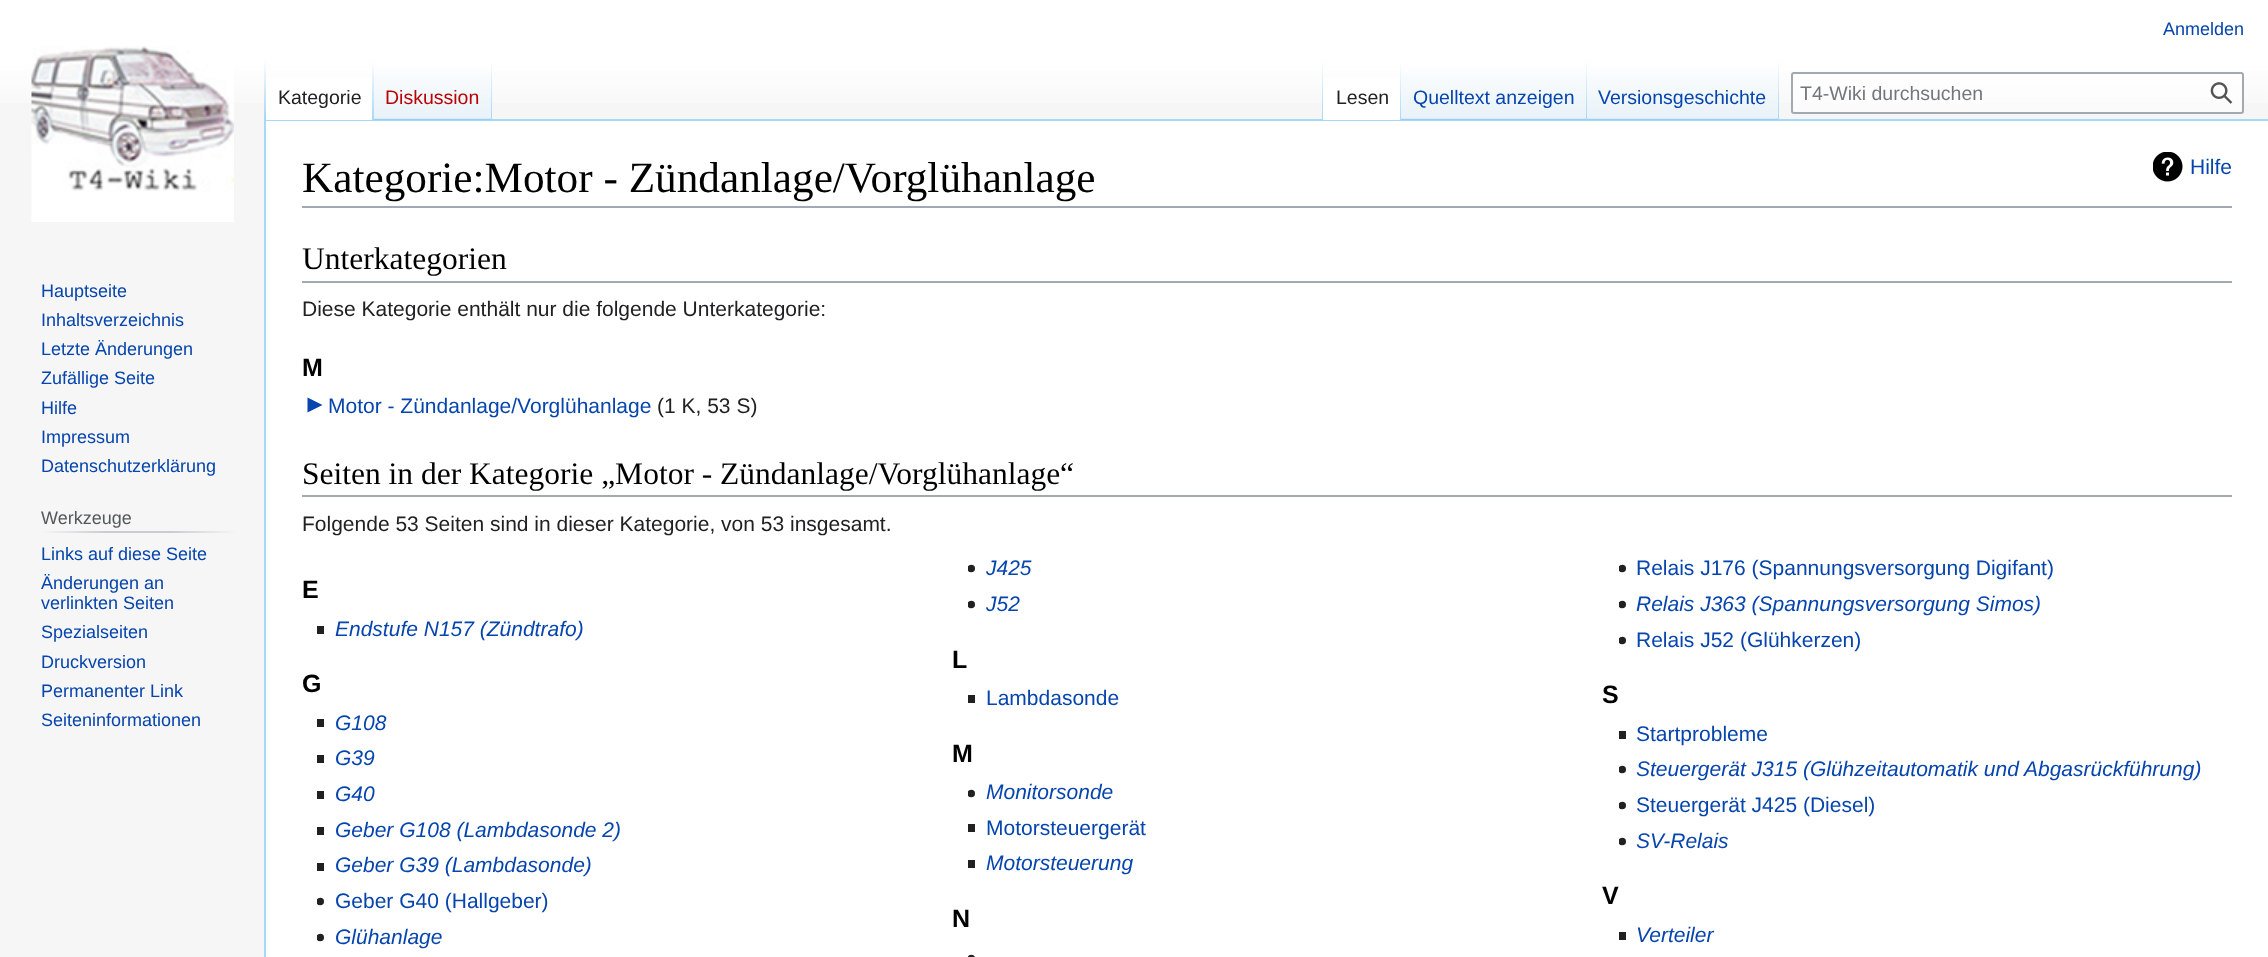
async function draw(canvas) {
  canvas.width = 2268
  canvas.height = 957
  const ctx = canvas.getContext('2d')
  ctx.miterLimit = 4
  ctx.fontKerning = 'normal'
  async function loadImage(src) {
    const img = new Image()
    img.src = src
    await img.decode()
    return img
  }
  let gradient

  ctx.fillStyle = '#f6f6f6'
  ctx.fillRect(0, 0, 2268, 957)
  gradient = ctx.createLinearGradient(1134, 0, 1134, 120)
  gradient.addColorStop(0.5, '#fff')
  gradient.addColorStop(1, '#f6f6f6')
  ctx.fillStyle = gradient
  ctx.fillRect(0, 0, 2268, 103)
  ctx.font = '18px Liberation Sans'
  ctx.fillStyle = '#0645ad'
  ctx.fillText('Anmelden', 2163, 35)
  ctx.fillStyle = '#a7d7f9'
  ctx.fillRect(264, 119, 2004, 2)
  ctx.fillRect(264, 119, 2, 838)
  gradient = ctx.createLinearGradient(265, 60, 265, 120)
  gradient.addColorStop(0, '#a7d7f900')
  gradient.addColorStop(1, '#a7d7f9')
  ctx.fillStyle = gradient
  ctx.fillRect(264, 60, 2, 60)
  ctx.fillStyle = '#fff'
  ctx.fillRect(266, 77, 106, 43)
  gradient = ctx.createLinearGradient(373, 60, 373, 120)
  gradient.addColorStop(0, '#fff')
  gradient.addColorStop(1, '#a7d7f9')
  ctx.fillStyle = gradient
  ctx.fillRect(372, 60, 2, 60)
  ctx.font = '19.5px Liberation Sans'
  ctx.fillStyle = '#202122'
  ctx.fillText('Kategorie', 278, 104)
  gradient = ctx.createLinearGradient(433, 120, 433, 60)
  gradient.addColorStop(0, '#77c1f6')
  gradient.addColorStop(0.03, '#e8f2f8')
  gradient.addColorStop(1, '#fff')
  ctx.fillStyle = gradient
  ctx.fillRect(374, 69, 118, 51)
  gradient = ctx.createLinearGradient(491, 60, 491, 120)
  gradient.addColorStop(0, '#a7d7f900')
  gradient.addColorStop(1, '#a7d7f9')
  ctx.fillStyle = gradient
  ctx.fillRect(491, 60, 1, 60)
  ctx.fillStyle = '#ba0000'
  ctx.fillText('Diskussion', 385, 104)
  gradient = ctx.createLinearGradient(1322, 60, 1322, 120)
  gradient.addColorStop(0, '#a7d7f900')
  gradient.addColorStop(1, '#a7d7f9')
  ctx.fillStyle = gradient
  ctx.fillRect(1322, 60, 1, 60)
  ctx.fillStyle = '#fff'
  ctx.fillRect(1323, 77, 77, 43)
  gradient = ctx.createLinearGradient(1400, 60, 1400, 120)
  gradient.addColorStop(0, '#fff')
  gradient.addColorStop(1, '#a7d7f9')
  ctx.fillStyle = gradient
  ctx.fillRect(1400, 60, 1, 60)
  ctx.fillStyle = '#202122'
  ctx.fillText('Lesen', 1336, 104)
  gradient = ctx.createLinearGradient(1494, 120, 1494, 60)
  gradient.addColorStop(0, '#77c1f6')
  gradient.addColorStop(0.03, '#e8f2f8')
  gradient.addColorStop(1, '#fff')
  ctx.fillStyle = gradient
  ctx.fillRect(1401, 69, 186, 51)
  gradient = ctx.createLinearGradient(1586, 60, 1586, 120)
  gradient.addColorStop(0, '#a7d7f900')
  gradient.addColorStop(1, '#a7d7f9')
  ctx.fillStyle = gradient
  ctx.fillRect(1586, 60, 1, 60)
  ctx.fillStyle = '#0645ad'
  ctx.fillText('Quelltext anzeigen', 1413, 104)
  gradient = ctx.createLinearGradient(1683, 120, 1683, 60)
  gradient.addColorStop(0, '#77c1f6')
  gradient.addColorStop(0.03, '#e8f2f8')
  gradient.addColorStop(1, '#fff')
  ctx.fillStyle = gradient
  ctx.fillRect(1587, 69, 192, 51)
  gradient = ctx.createLinearGradient(1778, 60, 1778, 120)
  gradient.addColorStop(0, '#a7d7f900')
  gradient.addColorStop(1, '#a7d7f9')
  ctx.fillStyle = gradient
  ctx.fillRect(1778, 60, 1, 60)
  ctx.fillStyle = '#0645ad'
  ctx.fillText('Versionsgeschichte', 1598, 104)
  ctx.fillStyle = '#ffffff80'
  ctx.beginPath()
  ctx.roundRect(1792, 73, 451, 40, 2)
  ctx.fill()
  ctx.strokeStyle = '#a2a9b1'
  ctx.lineWidth = 2
  ctx.stroke()
  ctx.fillStyle = '#72777d'
  ctx.fillText('T4-Wiki durchsuchen', 1800, 100)
  ctx.drawImage(await loadImage('image0.png'), 2210, 82, 23, 22)
  ctx.drawImage(await loadImage('image1.png'), 31, 46, 203, 176)
  ctx.font = '18px Liberation Sans'
  ctx.fillStyle = '#0645ad'
  ctx.fillText('Hauptseite', 41, 297)
  ctx.fillText('Inhaltsverzeichnis', 41, 326)
  ctx.fillText('Letzte Änderungen', 41, 355)
  ctx.fillText('Zufällige Seite', 41, 384)
  ctx.fillText('Hilfe', 41, 414)
  ctx.fillText('Impressum', 41, 443)
  ctx.fillText('Datenschutzerklärung', 41, 472)
  gradient = ctx.createLinearGradient(41, 532, 237, 532)
  gradient.addColorStop(0, '#f6f6f6')
  gradient.addColorStop(0.33, '#c8ccd1')
  gradient.addColorStop(0.66, '#c8ccd1')
  gradient.addColorStop(1, '#f6f6f6')
  ctx.fillStyle = gradient
  ctx.fillRect(41, 531, 196, 2)
  ctx.fillStyle = '#54595d'
  ctx.fillText('Werkzeuge', 41, 524)
  ctx.fillStyle = '#0645ad'
  ctx.fillText('Links auf diese Seite', 41, 560)
  ctx.fillText('Änderungen an', 41, 589)
  ctx.fillText('verlinkten Seiten', 41, 609)
  ctx.fillText('Spezialseiten', 41, 638)
  ctx.fillText('Druckversion', 41, 668)
  ctx.fillText('Permanenter Link', 41, 697)
  ctx.fillText('Seiteninformationen', 41, 726)
  ctx.fillStyle = '#fff'
  ctx.fillRect(266, 121, 2002, 836)
  ctx.fillStyle = '#a2a9b1'
  ctx.fillRect(302, 206, 1930, 2)
  ctx.font = '43.25px Liberation Serif'
  ctx.fillStyle = '#000'
  ctx.fillText('Kategorie:Motor - Zündanlage/Vorglühanlage', 302, 192)
  ctx.drawImage(await loadImage('image2.png'), 2153, 152, 30, 30)
  ctx.font = '21px Liberation Sans'
  ctx.fillStyle = '#0645ad'
  ctx.fillText('Hilfe', 2190, 174)
  ctx.fillStyle = '#a2a9b1'
  ctx.fillRect(302, 281, 1930, 2)
  ctx.font = '31.5px Liberation Serif'
  ctx.fillStyle = '#000'
  ctx.fillText('Unterkategorien', 302, 269)
  ctx.font = '21px Liberation Sans'
  ctx.fillStyle = '#202122'
  ctx.fillText('Diese Kategorie enthält nur die folgende Unterkategorie:', 302, 316)
  ctx.font = 'bold 25px Liberation Sans'
  ctx.fillStyle = '#000'
  ctx.fillText('M', 302, 376)
  ctx.fillStyle = '#0645ad'
  ctx.beginPath()
  ctx.moveTo(307.5, 412.5)
  ctx.lineTo(307.5, 397.5)
  ctx.lineTo(322.5, 405)
  ctx.closePath()
  ctx.fill()
  ctx.font = '21px Liberation Sans'
  ctx.fillText('Motor - Zündanlage/Vorglühanlage', 328, 413)
  ctx.fillStyle = '#202122'
  ctx.fillText('(1 K, 53 S)', 657, 413)
  ctx.fillStyle = '#a2a9b1'
  ctx.fillRect(302, 495, 1930, 2)
  ctx.font = '31.5px Liberation Serif'
  ctx.fillStyle = '#000'
  ctx.fillText('Seiten in der Kategorie „Motor - Zündanlage/Vorglühanlage“', 302, 484)
  ctx.font = '21px Liberation Sans'
  ctx.fillStyle = '#202122'
  ctx.fillText('Folgende 53 Seiten sind in dieser Kategorie, von 53 insgesamt.', 302, 531)
  ctx.font = 'bold 25px Liberation Sans'
  ctx.fillStyle = '#000'
  ctx.fillText('E', 302, 598)
  ctx.fillStyle = '#202122'
  ctx.fillRect(317, 626, 7, 8)
  ctx.font = 'italic 21px Liberation Sans'
  ctx.fillStyle = '#0645ad'
  ctx.fillText('Endstufe N157 (Zündtrafo)', 335, 636)
  ctx.drawImage(await loadImage('image3.png'), 968, 564, 7, 9)
  ctx.fillText('J425', 986, 575)
  ctx.drawImage(await loadImage('image3.png'), 968, 600, 7, 9)
  ctx.fillText('J52', 986, 611)
  ctx.drawImage(await loadImage('image3.png'), 1619, 564, 7, 9)
  ctx.font = '21px Liberation Sans'
  ctx.fillText('Relais J176 (Spannungsversorgung Digifant)', 1636, 575)
  ctx.drawImage(await loadImage('image3.png'), 1619, 600, 7, 9)
  ctx.font = 'italic 21px Liberation Sans'
  ctx.fillText('Relais J363 (Spannungsversorgung Simos)', 1636, 611)
  ctx.drawImage(await loadImage('image3.png'), 1619, 636, 7, 9)
  ctx.font = '21px Liberation Sans'
  ctx.fillText('Relais J52 (Glühkerzen)', 1636, 647)
  ctx.font = 'bold 25px Liberation Sans'
  ctx.fillStyle = '#000'
  ctx.fillText('G', 302, 692)
  ctx.fillStyle = '#202122'
  ctx.fillRect(317, 719, 7, 8)
  ctx.font = 'italic 21px Liberation Sans'
  ctx.fillStyle = '#0645ad'
  ctx.fillText('G108', 335, 730)
  ctx.fillStyle = '#202122'
  ctx.fillRect(317, 755, 7, 8)
  ctx.fillStyle = '#0645ad'
  ctx.fillText('G39', 335, 765)
  ctx.fillStyle = '#202122'
  ctx.fillRect(317, 791, 7, 8)
  ctx.fillStyle = '#0645ad'
  ctx.fillText('G40', 335, 801)
  ctx.fillStyle = '#202122'
  ctx.fillRect(317, 827, 7, 8)
  ctx.fillStyle = '#0645ad'
  ctx.fillText('Geber G108 (Lambdasonde 2)', 335, 837)
  ctx.fillStyle = '#202122'
  ctx.fillRect(317, 863, 7, 8)
  ctx.fillStyle = '#0645ad'
  ctx.fillText('Geber G39 (Lambdasonde)', 335, 872)
  ctx.drawImage(await loadImage('image3.png'), 317, 897, 7, 9)
  ctx.font = '21px Liberation Sans'
  ctx.fillText('Geber G40 (Hallgeber)', 335, 908)
  ctx.drawImage(await loadImage('image3.png'), 317, 933, 7, 9)
  ctx.font = 'italic 21px Liberation Sans'
  ctx.fillText('Glühanlage', 335, 944)
  ctx.font = 'bold 25px Liberation Sans'
  ctx.fillStyle = '#000'
  ctx.fillText('L', 952, 668)
  ctx.fillStyle = '#202122'
  ctx.fillRect(968, 695, 7, 8)
  ctx.font = '21px Liberation Sans'
  ctx.fillStyle = '#0645ad'
  ctx.fillText('Lambdasonde', 986, 705)
  ctx.font = 'bold 25px Liberation Sans'
  ctx.fillStyle = '#000'
  ctx.fillText('S', 1602, 703)
  ctx.fillStyle = '#202122'
  ctx.fillRect(1619, 731, 7, 8)
  ctx.font = '21px Liberation Sans'
  ctx.fillStyle = '#0645ad'
  ctx.fillText('Startprobleme', 1636, 741)
  ctx.drawImage(await loadImage('image3.png'), 1619, 765, 7, 9)
  ctx.font = 'italic 21px Liberation Sans'
  ctx.fillText('Steuergerät J315 (Glühzeitautomatik und Abgasrückführung)', 1636, 776)
  ctx.drawImage(await loadImage('image3.png'), 1619, 801, 7, 9)
  ctx.font = '21px Liberation Sans'
  ctx.fillText('Steuergerät J425 (Diesel)', 1636, 812)
  ctx.drawImage(await loadImage('image3.png'), 1619, 837, 7, 9)
  ctx.font = 'italic 21px Liberation Sans'
  ctx.fillText('SV-Relais', 1636, 848)
  ctx.font = 'bold 25px Liberation Sans'
  ctx.fillStyle = '#000'
  ctx.fillText('M', 952, 762)
  ctx.drawImage(await loadImage('image3.png'), 968, 789, 7, 9)
  ctx.font = 'italic 21px Liberation Sans'
  ctx.fillStyle = '#0645ad'
  ctx.fillText('Monitorsonde', 986, 799)
  ctx.fillStyle = '#202122'
  ctx.fillRect(968, 824, 7, 8)
  ctx.font = '21px Liberation Sans'
  ctx.fillStyle = '#0645ad'
  ctx.fillText('Motorsteuergerät', 986, 835)
  ctx.fillStyle = '#202122'
  ctx.fillRect(968, 860, 7, 8)
  ctx.font = 'italic 21px Liberation Sans'
  ctx.fillStyle = '#0645ad'
  ctx.fillText('Motorsteuerung', 986, 870)
  ctx.font = 'bold 25px Liberation Sans'
  ctx.fillStyle = '#000'
  ctx.fillText('N', 952, 927)
  ctx.drawImage(await loadImage('image4.png'), 968, 954, 7, 3)
  ctx.fillText('V', 1602, 904)
  ctx.fillStyle = '#202122'
  ctx.fillRect(1619, 932, 7, 8)
  ctx.font = 'italic 21px Liberation Sans'
  ctx.fillStyle = '#0645ad'
  ctx.fillText('Verteiler', 1636, 942)
}

draw(document.querySelector('canvas'))
